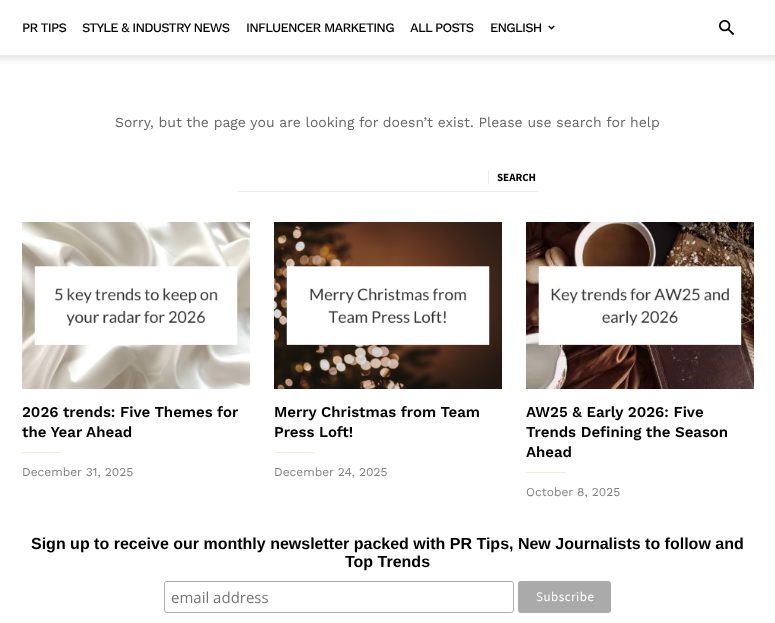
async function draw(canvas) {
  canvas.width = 775
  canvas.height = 623
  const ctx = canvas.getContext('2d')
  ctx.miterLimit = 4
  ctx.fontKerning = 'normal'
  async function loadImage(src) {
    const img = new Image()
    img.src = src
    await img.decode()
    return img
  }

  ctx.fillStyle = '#fff'
  ctx.fillRect(0, 0, 775, 623)
  ctx.fillStyle = '#e2eac1'
  ctx.fillRect(348, 21, 80, 1)
  ctx.fillStyle = '#fffffff2'
  ctx.fillRect(348, 21, 80, 1)
  ctx.letterSpacing = '-0.75px'
  ctx.font = '500 13px Work Sans'
  ctx.fillStyle = '#000'
  ctx.fillText('PR TIPS', 22, 32)
  ctx.fillText('STYLE & INDUSTRY NEWS', 82, 32)
  ctx.fillText('INFLUENCER MARKETING', 246, 32)
  ctx.fillText('ALL POSTS', 410, 32)
  ctx.fillText('ENGLISH', 490, 32)
  ctx.drawImage(await loadImage('image0.png'), 548, 25, 7, 5)
  ctx.drawImage(await loadImage('image1.png'), 719, 20, 15, 15)
  ctx.drawImage(await loadImage('image2.png'), 0, 55, 775, 9)
  ctx.letterSpacing = '0px'
  ctx.font = '14px Work Sans'
  ctx.fillStyle = '#666'
  ctx.fillText('Sorry, but the page you are looking for doesn’t exist. Please use search for help', 115, 127)
  ctx.fillStyle = '#ebebeb'
  ctx.fillRect(488, 170, 1, 14)
  ctx.font = 'bold 11px Source Sans Pro'
  ctx.fillStyle = '#000'
  ctx.fillText('SEARCH', 497, 181)
  ctx.fillStyle = '#ebebeb'
  ctx.fillRect(238, 191, 300, 1)
  ctx.drawImage(await loadImage('image3.png'), 22, 222, 228, 167)
  ctx.font = '600 15px Work Sans'
  ctx.fillStyle = '#000'
  ctx.fillText('2026 trends: Five Themes for', 22, 417)
  ctx.fillText('the Year Ahead', 22, 437)
  ctx.fillStyle = '#ecf1d5'
  ctx.fillRect(22, 452, 40, 1)
  ctx.font = '12px Work Sans'
  ctx.fillStyle = '#808080'
  ctx.fillText('December 31, 2025', 22, 476)
  ctx.drawImage(await loadImage('image4.png'), 274, 222, 228, 167)
  ctx.font = '600 15px Work Sans'
  ctx.fillStyle = '#000'
  ctx.fillText('Merry Christmas from Team', 274, 417)
  ctx.fillText('Press Loft!', 274, 437)
  ctx.fillStyle = '#ecf1d5'
  ctx.fillRect(274, 452, 40, 1)
  ctx.font = '12px Work Sans'
  ctx.fillStyle = '#808080'
  ctx.fillText('December 24, 2025', 274, 476)
  ctx.drawImage(await loadImage('image5.png'), 526, 222, 228, 167)
  ctx.font = '600 15px Work Sans'
  ctx.fillStyle = '#000'
  ctx.fillText('AW25 & Early 2026: Five', 526, 417)
  ctx.fillText('Trends Defining the Season', 526, 437)
  ctx.fillText('Ahead', 526, 457)
  ctx.fillStyle = '#ecf1d5'
  ctx.fillRect(526, 472, 40, 1)
  ctx.font = '12px Work Sans'
  ctx.fillStyle = '#808080'
  ctx.fillText('October 8, 2025', 526, 496)
  ctx.font = 'bold 16px Liberation Sans'
  ctx.fillStyle = '#000'
  ctx.fillText('Sign up to receive our monthly newsletter packed with PR Tips, New Journalists to follow and', 31, 549)
  ctx.fillText('Top Trends', 345, 567)
  ctx.beginPath()
  ctx.roundRect(164.5, 581.5, 349, 31, 2.5)
  ctx.strokeStyle = '#abb0b2'
  ctx.stroke()
  ctx.font = '15px Open Sans'
  ctx.fillStyle = '#757575'
  ctx.fillText('email address', 171, 603)
  ctx.fillStyle = '#aaa'
  ctx.beginPath()
  ctx.roundRect(518, 581, 93, 32, 3)
  ctx.fill()
  ctx.letterSpacing = '0.5px'
  ctx.font = '13px Source Sans Pro'
  ctx.fillStyle = '#fff'
  ctx.fillText('Subscribe', 536, 601)
}

draw(document.querySelector('canvas'))
